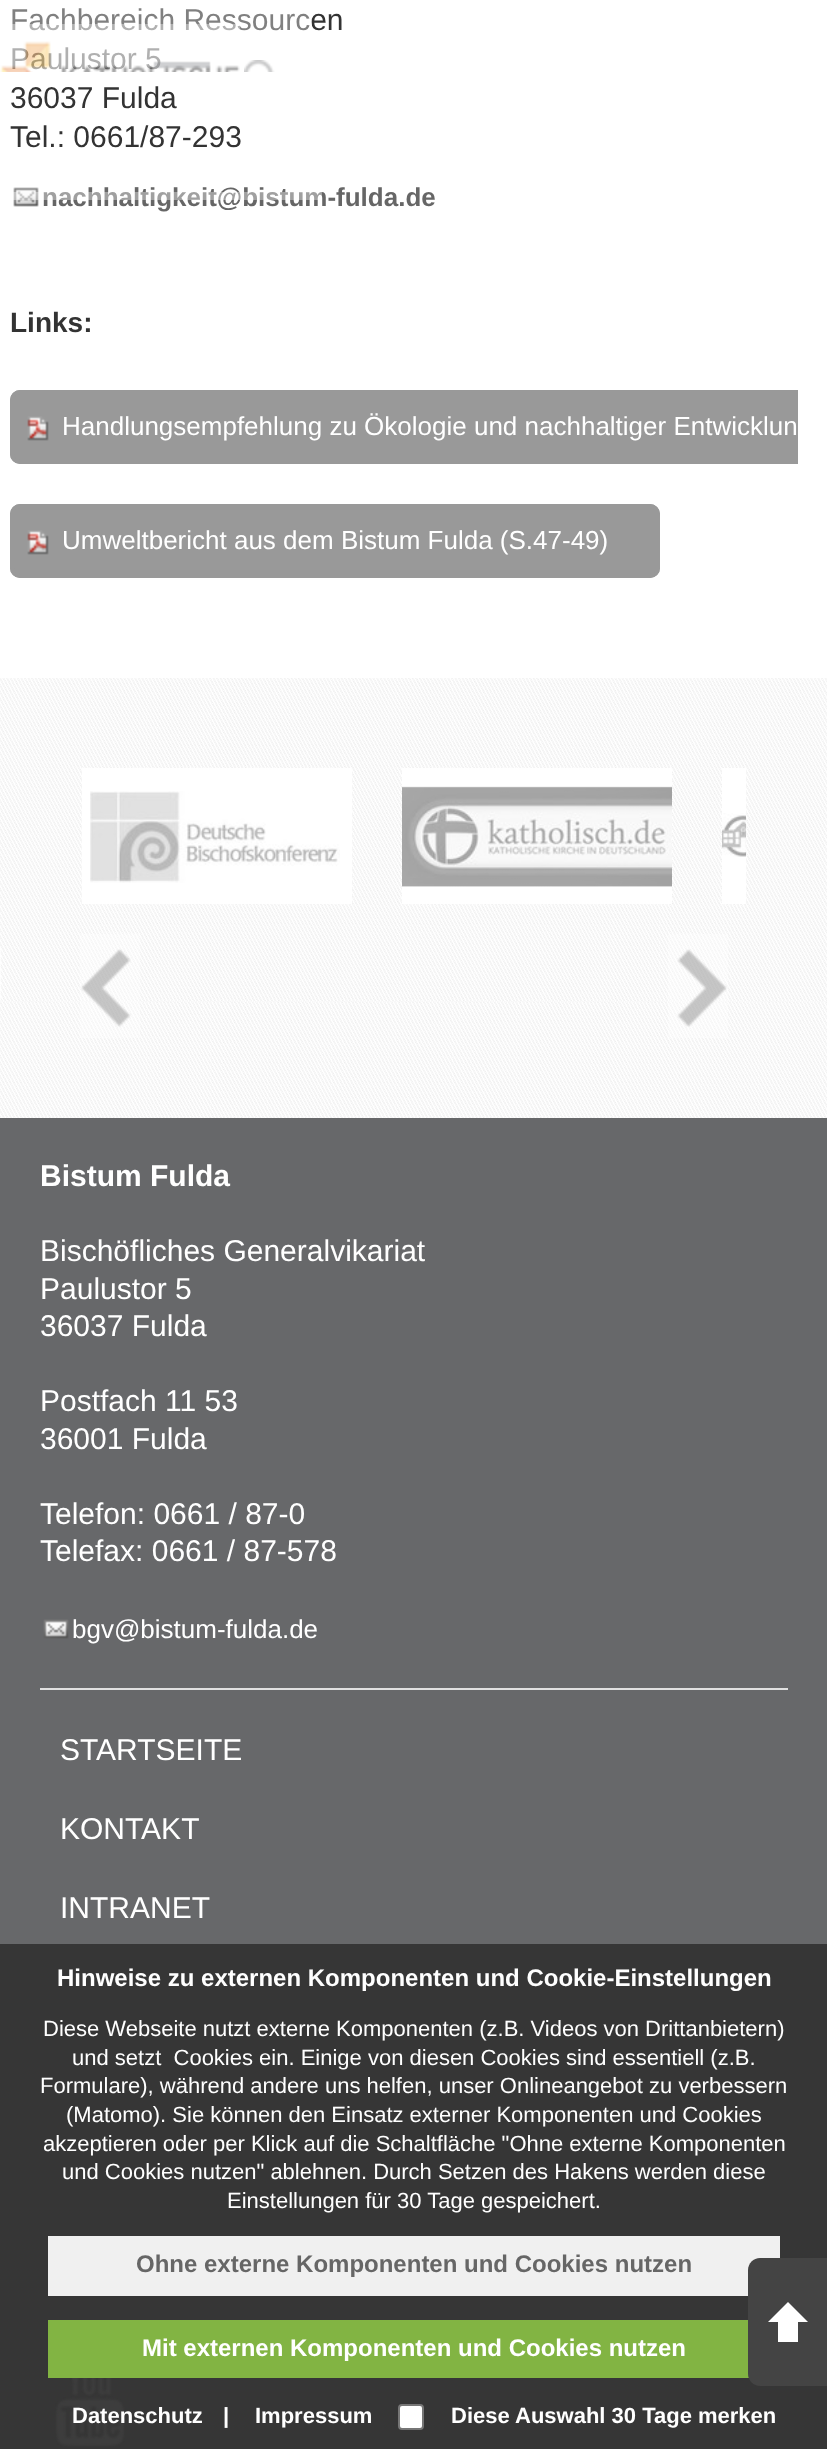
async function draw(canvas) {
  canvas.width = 827
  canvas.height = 2449
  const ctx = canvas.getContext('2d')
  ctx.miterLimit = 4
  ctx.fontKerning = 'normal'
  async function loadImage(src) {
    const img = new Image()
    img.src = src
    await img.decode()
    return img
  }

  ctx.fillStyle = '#fff'
  ctx.fillRect(0, 0, 827, 2449)
  ctx.font = '30px Liberation Sans'
  ctx.fillStyle = '#333'
  ctx.fillText('Fachbereich Ressourcen', 10, 30)
  ctx.fillText('Paulustor 5', 10, 69)
  ctx.fillStyle = '#ffffff61'
  ctx.fillRect(12, 8, 300, 62)
  ctx.drawImage(await loadImage('image0.png'), 0, 24, 240, 48)
  ctx.drawImage(await loadImage('image1.png'), 153, 61, 58, 8)
  ctx.drawImage(await loadImage('image2.png'), 244, 60, 31, 12)
  ctx.fillStyle = '#333'
  ctx.fillText('36037 Fulda', 10, 108)
  ctx.fillText('Tel.: 0661/87-293', 10, 147)
  ctx.drawImage(await loadImage('image3.png'), 13, 187, 26, 20)
  ctx.font = 'bold 26px Liberation Sans'
  ctx.fillStyle = '#666'
  ctx.fillText('nachhaltigkeit@bistum-fulda.de', 42, 206)
  ctx.font = 'bold 28px Liberation Sans'
  ctx.fillStyle = '#333'
  ctx.fillText('Links:', 10, 332)
  ctx.fillStyle = '#999'
  ctx.beginPath()
  ctx.roundRect(10, 390, 788, 74, [10, 0, 0, 10])
  ctx.fill()
  ctx.drawImage(await loadImage('image4.png'), 27, 416, 22, 25)
  ctx.save()
  ctx.beginPath()
  ctx.rect(10, 390, 788, 74)
  ctx.clip()
  ctx.beginPath()
  ctx.roundRect(12, 392, 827, 70, 8)
  ctx.strokeStyle = '#999'
  ctx.lineWidth = 4
  ctx.stroke()
  ctx.restore()
  ctx.font = '26px Liberation Sans'
  ctx.fillStyle = '#fff'
  ctx.fillText('Handlungsempfehlung zu Ökologie und nachhaltiger Entwicklun', 62, 435)
  ctx.fillStyle = '#999'
  ctx.beginPath()
  ctx.roundRect(10, 504, 650, 74, 10)
  ctx.fill()
  ctx.drawImage(await loadImage('image4.png'), 27, 530, 22, 25)
  ctx.beginPath()
  ctx.roundRect(12, 506, 646, 70, 8)
  ctx.strokeStyle = '#999'
  ctx.lineWidth = 4
  ctx.stroke()
  ctx.fillStyle = '#fff'
  ctx.fillText('Umweltbericht aus dem Bistum Fulda (S.47-49)', 62, 549)
  ctx.fillStyle = '#ffffff61'
  ctx.fillRect(10, 192, 312, 8)
  ctx.drawImage(await loadImage('image5.png'), 0, 678, 827, 440)
  ctx.fillStyle = '#fff'
  ctx.fillRect(82, 768, 270, 136)
  ctx.drawImage(await loadImage('image6.png'), 90, 791, 250, 92)
  ctx.fillRect(402, 768, 270, 136)
  ctx.drawImage(await loadImage('image7.png'), 402, 786, 270, 101)
  ctx.fillRect(722, 768, 24, 136)
  ctx.drawImage(await loadImage('image8.png'), 722, 813, 24, 44)
  ctx.drawImage(await loadImage('image9.png'), 80, 934, 60, 104)
  ctx.drawImage(await loadImage('image10.png'), 668, 934, 60, 104)
  ctx.fillStyle = '#67686a'
  ctx.fillRect(0, 1118, 827, 826)
  ctx.fillStyle = '#363636'
  ctx.fillRect(0, 1944, 827, 505)
  ctx.font = 'bold 30px Liberation Sans'
  ctx.fillStyle = '#fff'
  ctx.fillText('Bistum Fulda', 40, 1186)
  ctx.font = '30px Liberation Sans'
  ctx.fillText('Bischöfliches Generalvikariat', 40, 1261)
  ctx.fillText('Paulustor 5', 40, 1299)
  ctx.fillText('36037 Fulda', 40, 1336)
  ctx.fillText('Postfach 11 53', 40, 1411)
  ctx.fillText('36001 Fulda', 40, 1449)
  ctx.fillText('Telefon: 0661 / 87-0', 40, 1524)
  ctx.fillText('Telefax: 0661 / 87-578', 40, 1561)
  ctx.drawImage(await loadImage('image11.png'), 43, 1619, 26, 20)
  ctx.font = '26px Liberation Sans'
  ctx.fillText('bgv@bistum-fulda.de', 72, 1638)
  ctx.fillStyle = '#e0e0e0'
  ctx.fillRect(40, 1688, 748, 2)
  ctx.font = '30px Liberation Sans'
  ctx.fillStyle = '#fff'
  ctx.fillText('STARTSEITE', 60, 1760)
  ctx.fillText('KONTAKT', 60, 1839)
  ctx.fillText('INTRANET', 60, 1918)
  ctx.drawImage(await loadImage('image12.png'), 55, 2378, 70, 69)
  ctx.font = 'bold 24px Liberation Sans'
  ctx.fillText('Hinweise zu externen Komponenten und Cookie-Einstellungen', 57, 1986)
  ctx.font = '22px Liberation Sans'
  ctx.fillText('Diese Webseite nutzt externe Komponenten (z.B. Videos von Drittanbietern)', 43, 2036)
  ctx.fillText('und setzt  Cookies ein. Einige von diesen Cookies sind essentiell (z.B.', 72, 2065)
  ctx.fillText('Formulare), während andere uns helfen, unser Onlineangebot zu verbessern', 40, 2093)
  ctx.fillText('(Matomo). Sie können den Einsatz externer Komponenten und Cookies', 66, 2122)
  ctx.fillText('akzeptieren oder per Klick auf die Schaltfläche "Ohne externe Komponenten', 43, 2151)
  ctx.fillText('und Cookies nutzen" ablehnen. Durch Setzen des Hakens werden diese', 62, 2179)
  ctx.fillText('Einstellungen für 30 Tage gespeichert.', 227, 2208)
  ctx.fillStyle = '#f0f0f0'
  ctx.fillRect(48, 2236, 732, 60)
  ctx.font = 'bold 24px Liberation Sans'
  ctx.fillStyle = '#666'
  ctx.fillText('Ohne externe Komponenten und Cookies nutzen', 136, 2272)
  ctx.fillStyle = '#82b443'
  ctx.fillRect(48, 2320, 701, 58)
  ctx.fillStyle = '#fff'
  ctx.fillText('Mit externen Komponenten und Cookies nutzen', 142, 2356)
  ctx.font = 'bold 22px Liberation Sans'
  ctx.fillText('Datenschutz', 72, 2423)
  ctx.fillText('|', 223, 2423)
  ctx.fillText('Impressum', 255, 2423)
  ctx.beginPath()
  ctx.roundRect(399, 2405, 24, 24, 3)
  ctx.fill()
  ctx.strokeStyle = '#767676'
  ctx.lineWidth = 2
  ctx.stroke()
  ctx.fillText('Diese Auswahl 30 Tage merken', 451, 2423)
  ctx.fillStyle = '#444'
  ctx.beginPath()
  ctx.moveTo(760, 2258)
  ctx.lineTo(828, 2258)
  ctx.lineTo(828, 2386)
  ctx.lineTo(760, 2386)
  ctx.bezierCurveTo(753.5, 2386, 748, 2380.5, 748, 2374)
  ctx.lineTo(748, 2270)
  ctx.bezierCurveTo(748, 2263.5, 753.5, 2258, 760, 2258)
  ctx.closePath()
  ctx.fill()
  ctx.fillStyle = '#fff'
  ctx.beginPath()
  ctx.moveTo(808, 2322)
  ctx.lineTo(768, 2322)
  ctx.lineTo(788, 2302)
  ctx.closePath()
  ctx.fill()
  ctx.fillRect(778, 2322, 20, 20)
}

draw(document.querySelector('canvas'))
